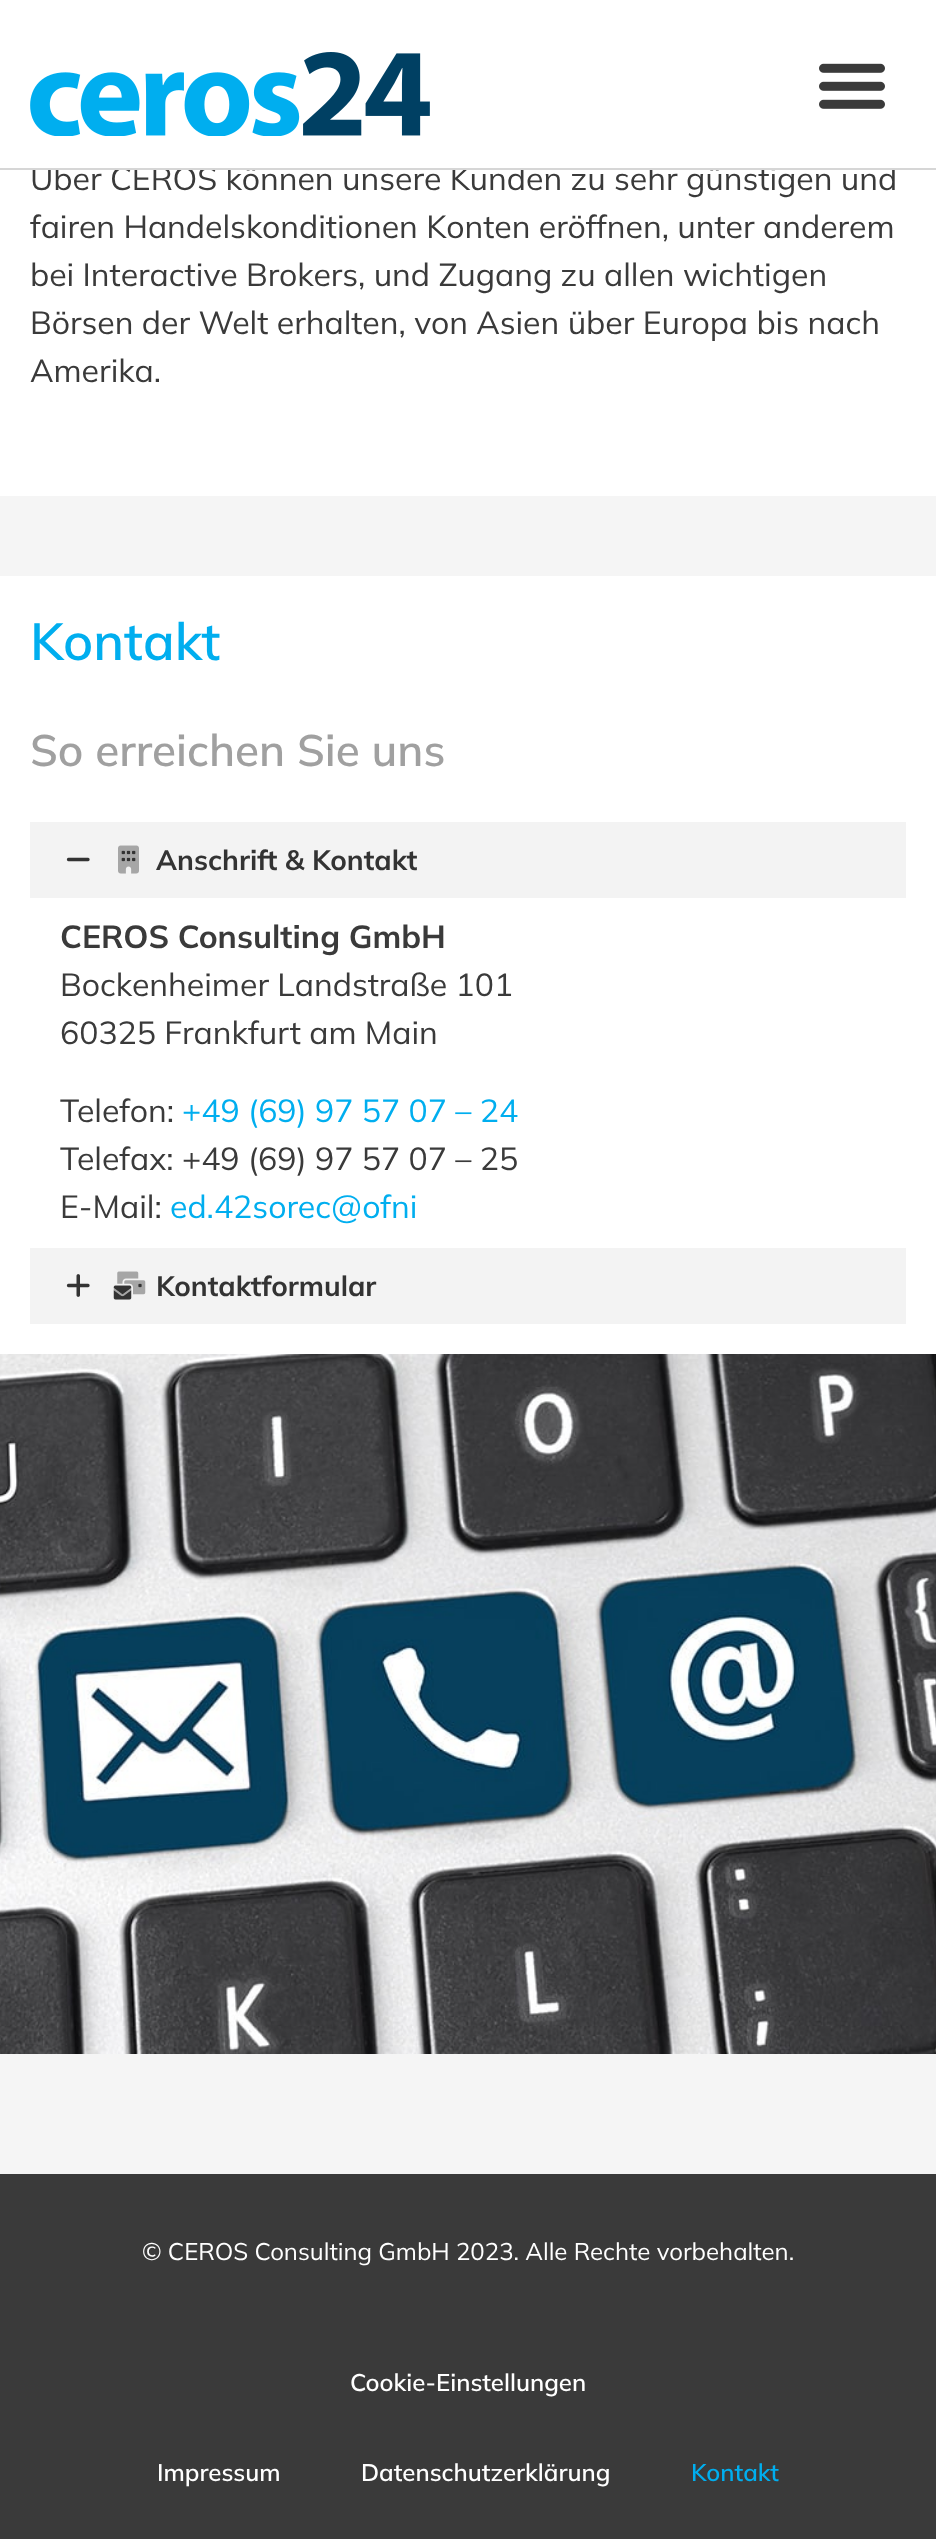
async function draw(canvas) {
  canvas.width = 936
  canvas.height = 2539
  const ctx = canvas.getContext('2d')
  ctx.miterLimit = 4
  ctx.fontKerning = 'normal'
  async function loadImage(src) {
    const img = new Image()
    img.src = src
    await img.decode()
    return img
  }

  ctx.fillStyle = '#f5f5f5'
  ctx.fillRect(0, 0, 936, 2539)
  ctx.fillStyle = '#fff'
  ctx.fillRect(0, 170, 936, 326)
  ctx.font = '32px Mulish'
  ctx.fillStyle = '#3a3a3a'
  ctx.fillText('Über CEROS können unsere Kunden zu sehr günstigen und', 30, 190)
  ctx.fillStyle = '#fff'
  ctx.fillRect(0, 0, 936, 168)
  ctx.fillStyle = '#d6d6d6'
  ctx.fillRect(0, 168, 936, 2)
  ctx.drawImage(await loadImage('image0.png'), 30, 52, 400, 84)
  ctx.drawImage(await loadImage('image1.png'), 819, 63, 66, 46)
  ctx.fillStyle = '#3a3a3a'
  ctx.fillText('fairen Handelskonditionen Konten eröffnen, unter anderem', 30, 238)
  ctx.fillText('bei Interactive Brokers, und Zugang zu allen wichtigen', 30, 286)
  ctx.fillText('Börsen der Welt erhalten, von Asien über Europa bis nach', 30, 334)
  ctx.fillText('Amerika.', 30, 382)
  ctx.fillStyle = '#fff'
  ctx.fillRect(0, 576, 936, 778)
  ctx.font = '600 52px Mulish'
  ctx.fillStyle = '#00aeef'
  ctx.fillText('Kontakt', 30, 660)
  ctx.font = '600 44px Mulish'
  ctx.fillStyle = '#a0a0a0'
  ctx.fillText('So erreichen Sie uns', 30, 766)
  ctx.fillStyle = '#f3f3f3'
  ctx.fillRect(30, 822, 876, 76)
  ctx.drawImage(await loadImage('image2.png'), 66, 857, 24, 5)
  ctx.drawImage(await loadImage('image4.png'), 121, 850, 15, 12)
  ctx.drawImage(await loadImage('image3.png'), 118, 845, 21, 29)
  ctx.font = 'bold 28px Mulish'
  ctx.fillStyle = '#333'
  ctx.fillText('Anschrift & Kontakt', 156, 870)
  ctx.font = 'bold 32px Mulish'
  ctx.fillStyle = '#3a3a3a'
  ctx.fillText('CEROS Consulting GmbH', 60, 948)
  ctx.font = '32px Mulish'
  ctx.fillText('Bockenheimer Landstraße 101', 60, 996)
  ctx.fillText('60325 Frankfurt am Main', 60, 1044)
  ctx.fillText('Telefon:', 60, 1122)
  ctx.fillStyle = '#00aeef'
  ctx.fillText('+49 (69) 97 57 07 – 24', 182, 1122)
  ctx.fillStyle = '#3a3a3a'
  ctx.fillText('Telefax: +49 (69) 97 57 07 – 25', 60, 1170)
  ctx.fillText('E-Mail:', 60, 1218)
  ctx.fillStyle = '#00aeef'
  ctx.fillText('ed.42sorec@ofni', 170, 1218)
  ctx.fillStyle = '#f3f3f3'
  ctx.fillRect(30, 1248, 876, 76)
  ctx.drawImage(await loadImage('image5.png'), 66, 1274, 24, 23)
  ctx.drawImage(await loadImage('image7.png'), 113, 1283, 29, 17)
  ctx.drawImage(await loadImage('image6.png'), 113, 1271, 33, 25)
  ctx.font = 'bold 28px Mulish'
  ctx.fillStyle = '#333'
  ctx.fillText('Kontaktformular', 156, 1296)
  ctx.drawImage(await loadImage('image8.png'), 0, 1354, 936, 700)
  ctx.fillStyle = '#3a3a3a'
  ctx.fillRect(0, 2174, 936, 365)
  ctx.font = '24px Mulish'
  ctx.fillStyle = '#fff'
  ctx.fillText('© CEROS Consulting GmbH 2023. Alle Rechte vorbehalten.', 142, 2260)
  ctx.font = '600 24px Mulish'
  ctx.fillText('Cookie-Einstellungen', 350, 2391)
  ctx.fillText('Impressum', 157, 2481)
  ctx.fillText('Datenschutzerklärung', 361, 2481)
  ctx.fillStyle = '#00aeef'
  ctx.fillText('Kontakt', 691, 2481)
}

draw(document.querySelector('canvas'))
